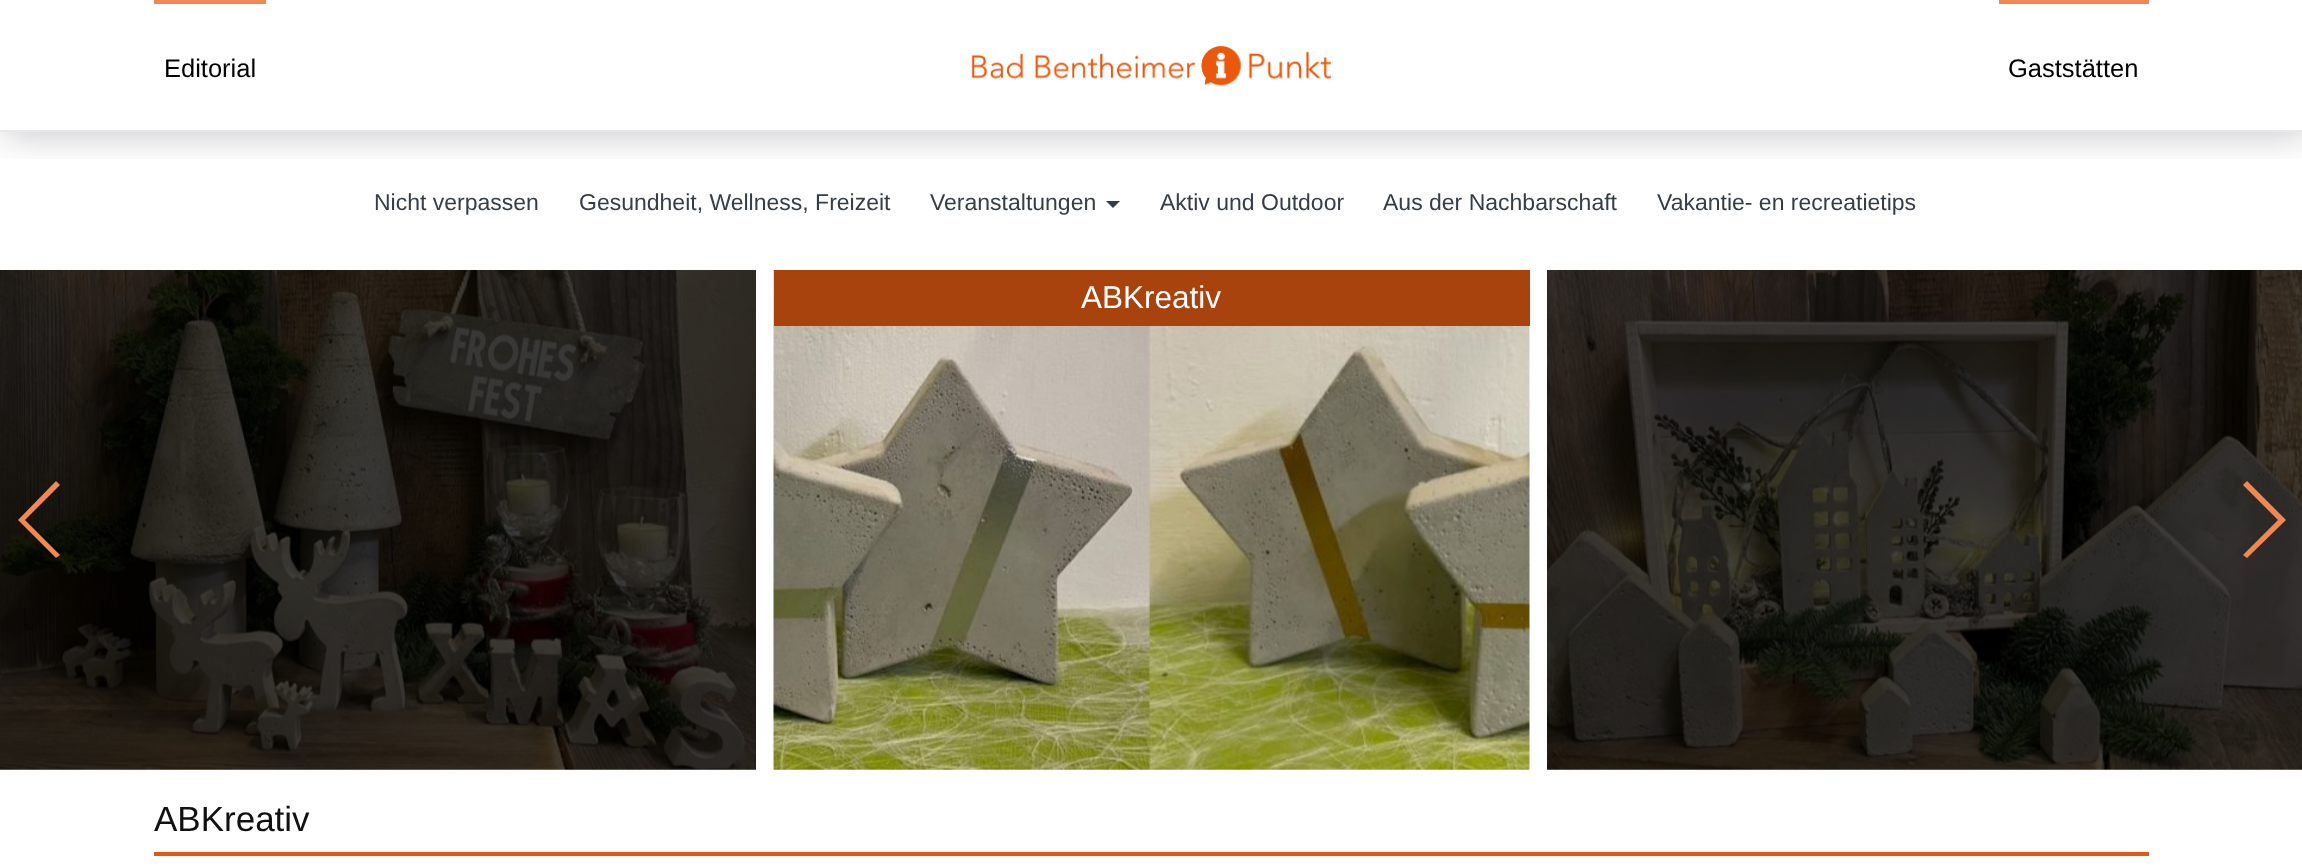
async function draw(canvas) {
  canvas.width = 2302
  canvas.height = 867
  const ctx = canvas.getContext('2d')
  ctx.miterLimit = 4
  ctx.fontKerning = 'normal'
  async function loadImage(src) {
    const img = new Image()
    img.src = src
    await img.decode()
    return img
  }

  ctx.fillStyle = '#fff'
  ctx.fillRect(0, 0, 2302, 867)
  ctx.save()
  ctx.beginPath()
  ctx.rect(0, 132, 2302, 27)
  ctx.clip()
  ctx.fillStyle = '#00000033'
  ctx.filter = 'blur(17.5px)'
  ctx.beginPath()
  ctx.rect(4, 5, 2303, 132)
  ctx.fill()
  ctx.filter = 'none'
  ctx.restore()
  ctx.fillStyle = '#e5e8ee'
  ctx.fillRect(0, 130, 2302, 2)
  ctx.fillStyle = '#ef8852'
  ctx.fillRect(154, 0, 112, 4)
  ctx.font = '25.5px Liberation Sans'
  ctx.fillStyle = '#000'
  ctx.fillText('Editorial', 164, 77)
  ctx.drawImage(await loadImage('image0.png'), 971, 45, 361, 41)
  ctx.fillStyle = '#ef8852'
  ctx.fillRect(1999, 0, 150, 4)
  ctx.fillStyle = '#000'
  ctx.fillText('Gaststätten', 2008, 77)
  ctx.font = '23px Liberation Sans'
  ctx.fillStyle = '#353d47'
  ctx.fillText('Nicht verpassen', 374, 210)
  ctx.fillText('Gesundheit, Wellness, Freizeit', 579, 210)
  ctx.fillText('Veranstaltungen', 930, 210)
  ctx.beginPath()
  ctx.moveTo(1106, 201)
  ctx.lineTo(1120, 201)
  ctx.lineTo(1113, 208)
  ctx.closePath()
  ctx.fill()
  ctx.fillText('Aktiv und Outdoor', 1160, 210)
  ctx.fillText('Aus der Nachbarschaft', 1383, 210)
  ctx.fillText('Vakantie- en recreatietips', 1657, 210)
  ctx.drawImage(await loadImage('image1.png'), 0, 270, 756, 500)
  ctx.drawImage(await loadImage('image2.png'), 773, 270, 757, 500)
  ctx.fillStyle = '#a8430d'
  ctx.fillRect(774, 270, 756, 56)
  ctx.font = '31.5px Liberation Sans'
  ctx.fillStyle = '#fff'
  ctx.fillText('ABKreativ', 1081, 308)
  ctx.drawImage(await loadImage('image3.png'), 1547, 270, 755, 500)
  ctx.fillStyle = '#ef8852'
  ctx.beginPath()
  ctx.moveTo(18, 520)
  ctx.lineTo(56, 481)
  ctx.lineTo(60, 485)
  ctx.lineTo(25, 520)
  ctx.lineTo(60, 555)
  ctx.lineTo(56, 558)
  ctx.closePath()
  ctx.fill()
  ctx.beginPath()
  ctx.moveTo(2286, 520)
  ctx.lineTo(2247, 558)
  ctx.lineTo(2243, 555)
  ctx.lineTo(2278, 520)
  ctx.lineTo(2243, 485)
  ctx.lineTo(2247, 481)
  ctx.closePath()
  ctx.fill()
  ctx.fillStyle = '#e05811'
  ctx.fillRect(154, 852, 1995, 4)
  ctx.font = '35px Liberation Sans'
  ctx.fillStyle = '#111'
  ctx.fillText('ABKreativ', 154, 831)
}

draw(document.querySelector('canvas'))
